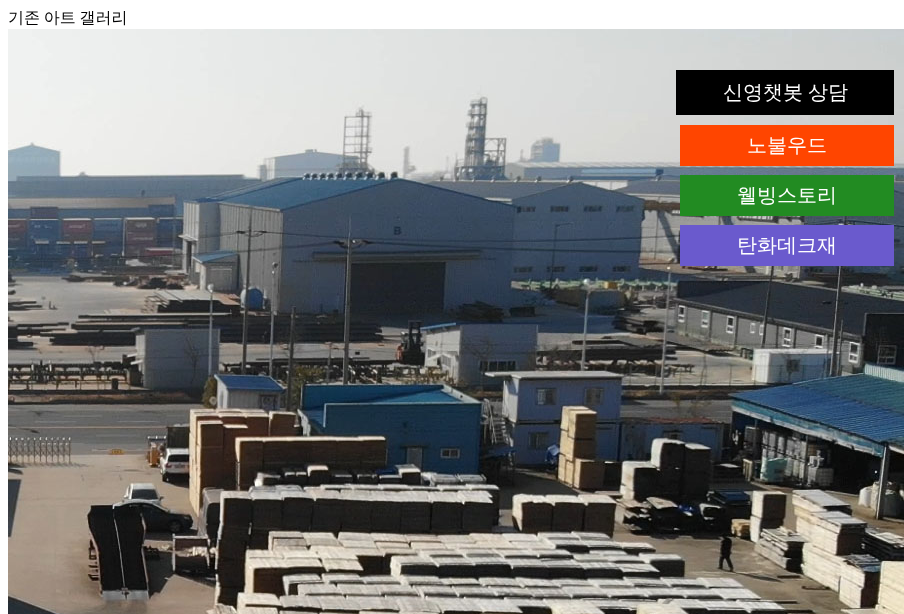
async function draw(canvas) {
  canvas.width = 904
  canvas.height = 614
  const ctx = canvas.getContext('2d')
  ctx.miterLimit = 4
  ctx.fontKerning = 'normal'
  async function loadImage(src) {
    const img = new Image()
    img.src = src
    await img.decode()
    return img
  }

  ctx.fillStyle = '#fff'
  ctx.fillRect(0, 0, 904, 614)
  ctx.wordSpacing = '-1px'
  ctx.font = '500 16px WenQuanYi Zen Hei'
  ctx.fillStyle = '#000'
  ctx.fillText('기존 아트 갤러리', 8, 23)
  ctx.drawImage(await loadImage('image0.png'), 8, 29, 896, 585)
  ctx.fillRect(676, 70, 218, 45)
  ctx.font = '500 20px WenQuanYi Zen Hei'
  ctx.fillStyle = '#fff'
  ctx.fillText('신영챗봇 상담', 723, 99)
  ctx.fillStyle = '#ff4500'
  ctx.fillRect(680, 125, 214, 41)
  ctx.wordSpacing = '0px'
  ctx.fillStyle = '#fff'
  ctx.fillText('노불우드', 747, 152)
  ctx.fillStyle = '#228b22'
  ctx.fillRect(680, 175, 214, 41)
  ctx.fillStyle = '#fff'
  ctx.fillText('웰빙스토리', 737, 202)
  ctx.fillStyle = '#6a5acd'
  ctx.fillRect(680, 225, 214, 41)
  ctx.fillStyle = '#fff'
  ctx.fillText('탄화데크재', 737, 252)
}

draw(document.querySelector('canvas'))
